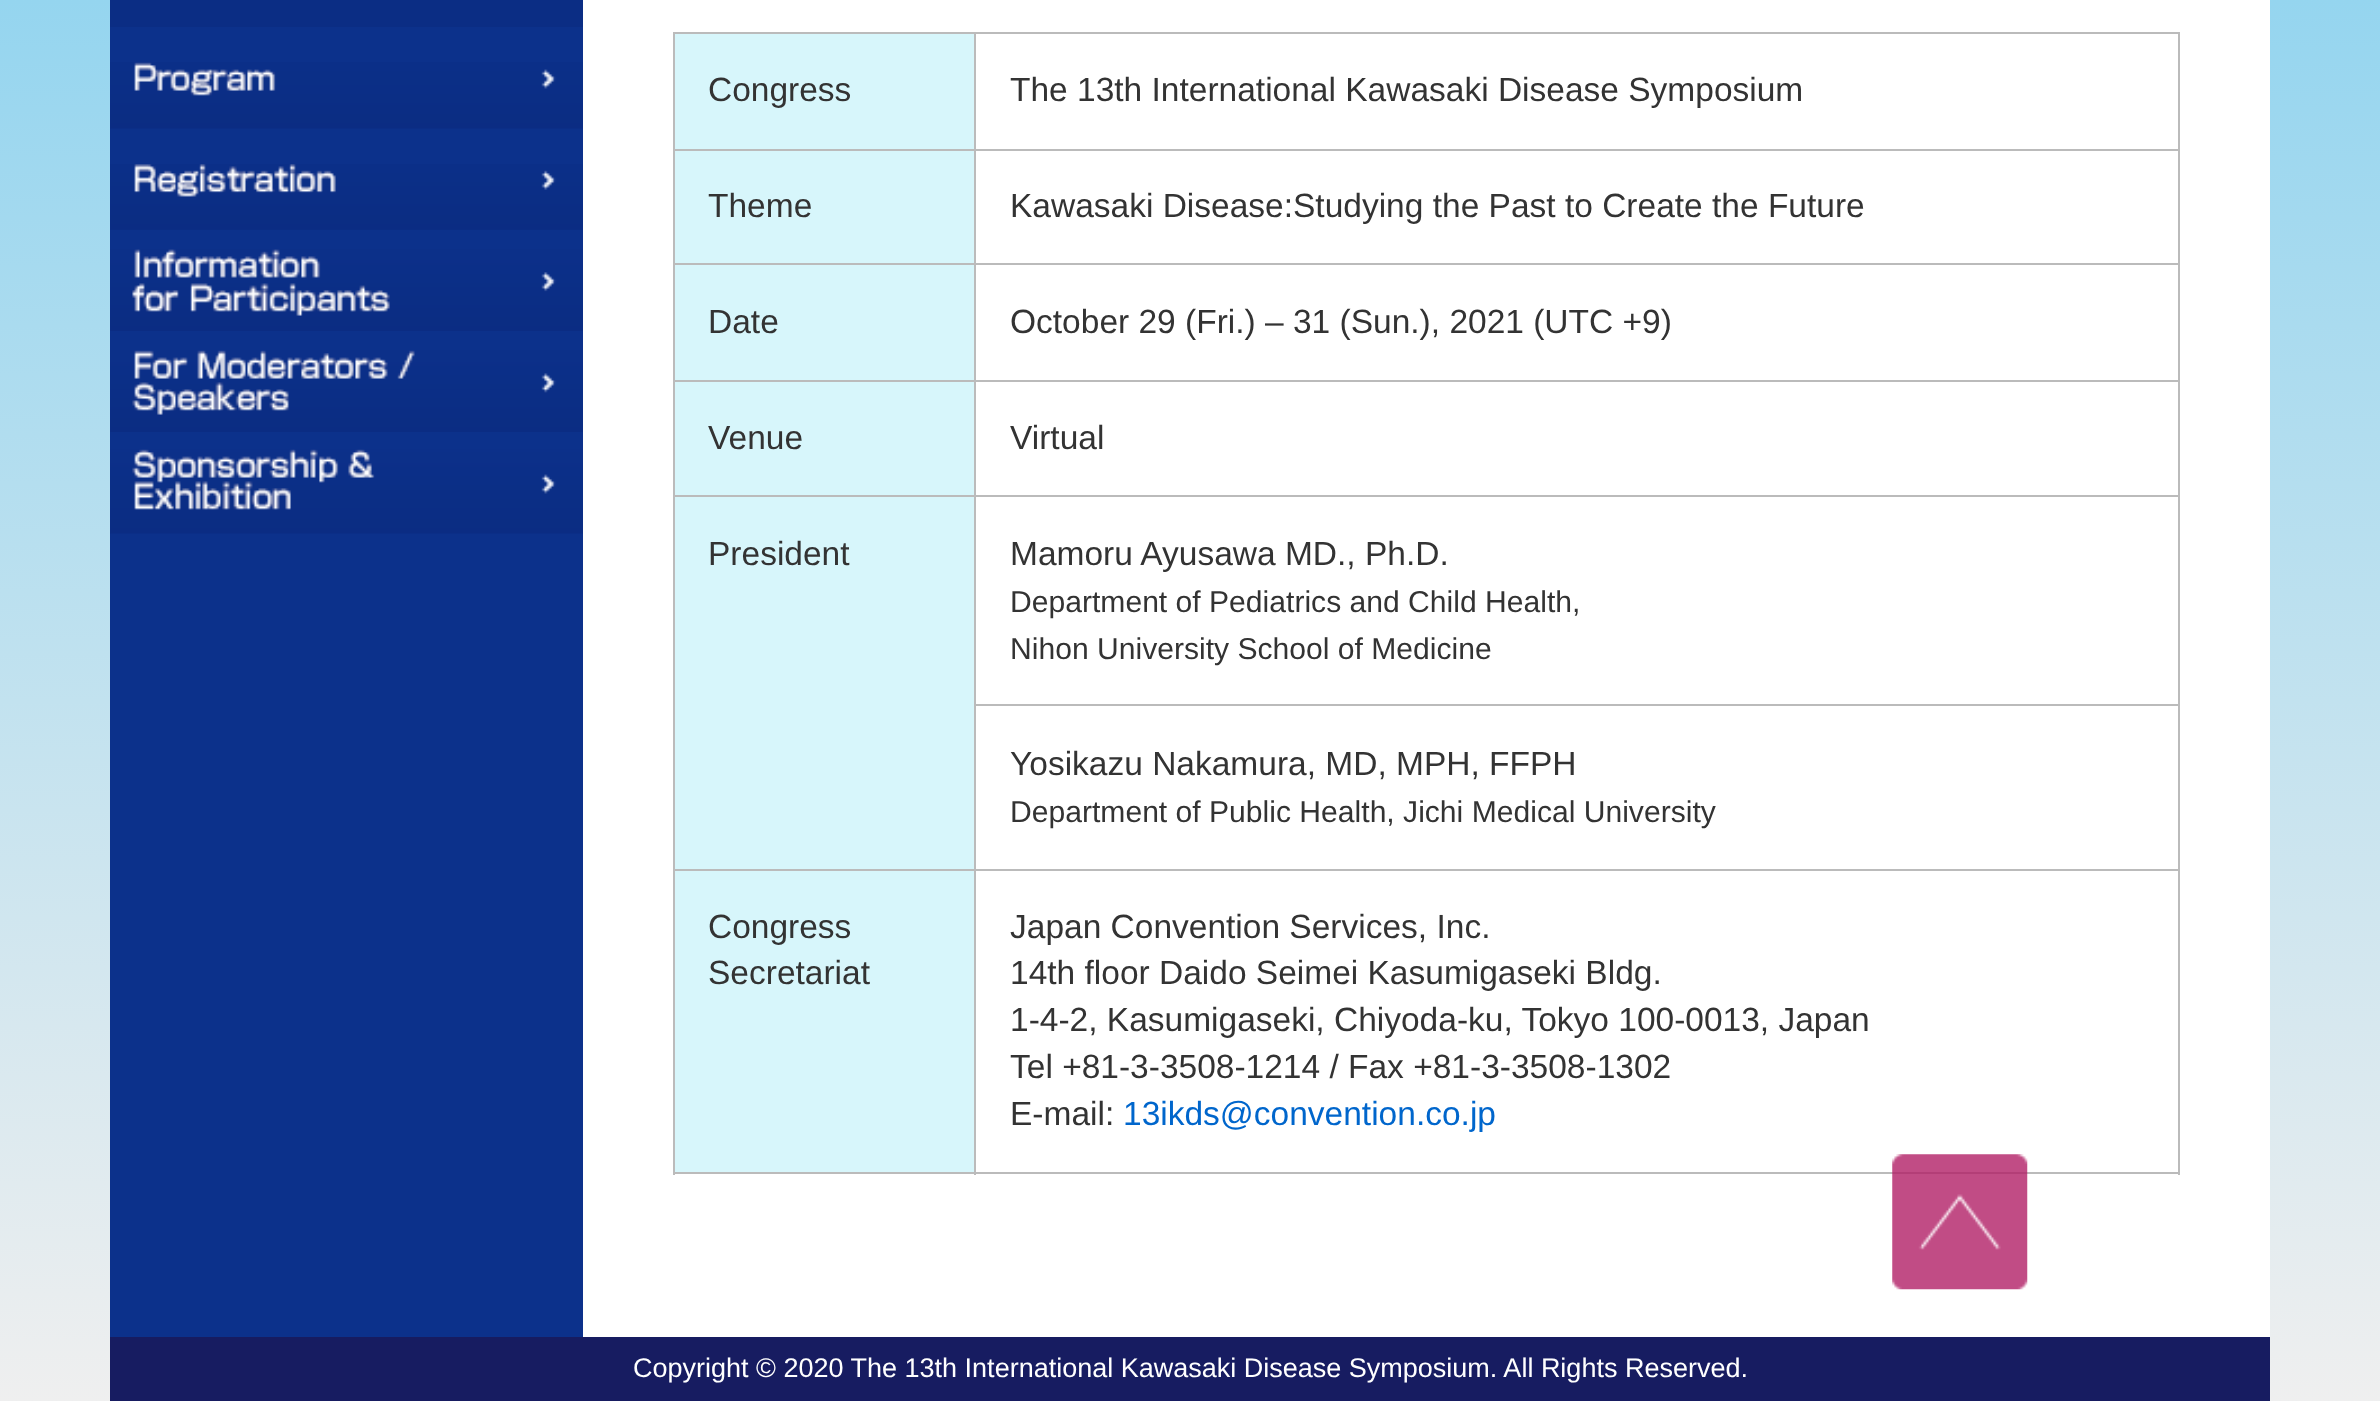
async function draw(canvas) {
  canvas.width = 2380
  canvas.height = 1401
  const ctx = canvas.getContext('2d')
  ctx.miterLimit = 4
  ctx.fontKerning = 'normal'
  async function loadImage(src) {
    const img = new Image()
    img.src = src
    await img.decode()
    return img
  }
  let gradient

  ctx.fillStyle = '#fff'
  ctx.fillRect(0, 0, 2380, 1401)
  gradient = ctx.createLinearGradient(1190, 0, 1190, 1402)
  gradient.addColorStop(0, '#95d5ef')
  gradient.addColorStop(1, '#efefef')
  ctx.fillStyle = gradient
  ctx.fillRect(0, 0, 2380, 1401)
  ctx.fillStyle = '#fff'
  ctx.fillRect(583, 0, 1687, 1337)
  ctx.fillStyle = '#0c318b'
  ctx.fillRect(110, 27, 473, 1310)
  ctx.fillStyle = '#0b2d84'
  ctx.fillRect(110, 0, 473, 27)
  ctx.drawImage(await loadImage('image0.png'), 110, 62, 473, 67)
  ctx.drawImage(await loadImage('image1.png'), 110, 164, 473, 66)
  ctx.drawImage(await loadImage('image2.png'), 110, 249, 473, 82)
  ctx.drawImage(await loadImage('image3.png'), 110, 350, 473, 82)
  ctx.drawImage(await loadImage('image4.png'), 110, 449, 473, 85)
  ctx.fillStyle = '#bbb'
  ctx.fillRect(673, 32, 1507, 2)
  ctx.fillRect(2178, 32, 2, 1143)
  ctx.fillRect(673, 1172, 1507, 2)
  ctx.fillRect(673, 32, 2, 1143)
  ctx.fillStyle = '#d7f6fb'
  ctx.fillRect(675, 34, 299, 115)
  ctx.font = '33.5px Liberation Sans'
  ctx.fillStyle = '#333'
  ctx.fillText('Congress', 708, 101)
  ctx.fillStyle = '#bbb'
  ctx.fillRect(974, 149, 1206, 2)
  ctx.fillStyle = '#d7f6fb'
  ctx.fillRect(675, 151, 299, 229)
  ctx.fillStyle = '#bbb'
  ctx.fillRect(974, 263, 1206, 2)
  ctx.fillRect(974, 380, 1206, 2)
  ctx.fillRect(974, 495, 1206, 2)
  ctx.fillRect(974, 704, 1206, 2)
  ctx.fillRect(974, 869, 1206, 2)
  ctx.fillRect(974, 869, 2, 306)
  ctx.fillRect(673, 869, 304, 2)
  ctx.fillRect(974, 704, 2, 167)
  ctx.fillRect(974, 495, 2, 212)
  ctx.fillRect(673, 495, 304, 2)
  ctx.fillRect(974, 380, 2, 117)
  ctx.fillRect(673, 380, 304, 2)
  ctx.fillRect(974, 263, 2, 120)
  ctx.fillRect(673, 263, 304, 2)
  ctx.fillRect(974, 149, 2, 117)
  ctx.fillRect(673, 149, 304, 2)
  ctx.fillRect(974, 32, 2, 119)
  ctx.fillStyle = '#333'
  ctx.fillText('The 13th International Kawasaki Disease Symposium', 1010, 101)
  ctx.fillText('Theme', 708, 217)
  ctx.fillText('Kawasaki Disease:Studying the Past to Create the Future', 1010, 217)
  ctx.fillText('Date', 708, 333)
  ctx.fillText('October 29 (Fri.) – 31 (Sun.), 2021 (UTC +9)', 1010, 333)
  ctx.fillStyle = '#d7f6fb'
  ctx.fillRect(675, 382, 299, 113)
  ctx.fillStyle = '#333'
  ctx.fillText('Venue', 708, 449)
  ctx.fillText('Virtual', 1010, 449)
  ctx.fillStyle = '#d7f6fb'
  ctx.fillRect(675, 497, 299, 372)
  ctx.fillStyle = '#333'
  ctx.fillText('President', 708, 565)
  ctx.fillText('Mamoru Ayusawa MD., Ph.D.', 1010, 565)
  ctx.font = '30.1px Liberation Sans'
  ctx.fillText('Department of Pediatrics and Child Health,', 1010, 612)
  ctx.fillText('Nihon University School of Medicine', 1010, 659)
  ctx.font = '33.5px Liberation Sans'
  ctx.fillText('Yosikazu Nakamura, MD, MPH, FFPH', 1010, 775)
  ctx.font = '30.1px Liberation Sans'
  ctx.fillText('Department of Public Health, Jichi Medical University', 1010, 822)
  ctx.fillStyle = '#d7f6fb'
  ctx.fillRect(675, 871, 299, 301)
  ctx.font = '33.5px Liberation Sans'
  ctx.fillStyle = '#333'
  ctx.fillText('Congress', 708, 938)
  ctx.fillText('Secretariat', 708, 984)
  ctx.fillText('Japan Convention Services, Inc.', 1010, 938)
  ctx.fillText('14th floor Daido Seimei Kasumigaseki Bldg.', 1010, 984)
  ctx.fillText('1-4-2, Kasumigaseki, Chiyoda-ku, Tokyo 100-0013, Japan', 1010, 1031)
  ctx.fillText('Tel +81-3-3508-1214 / Fax +81-3-3508-1302', 1010, 1078)
  ctx.fillText('E-mail:', 1010, 1125)
  ctx.fillStyle = '#06c'
  ctx.fillText('13ikds@convention.co.jp', 1123, 1125)
  ctx.drawImage(await loadImage('image5.png'), 1892, 1154, 136, 136)
  ctx.fillStyle = '#171c61'
  ctx.fillRect(110, 1337, 2160, 64)
  ctx.font = '27px Liberation Sans'
  ctx.fillStyle = '#fff'
  ctx.fillText('Copyright © 2020 The 13th International Kawasaki Disease Symposium. All Rights Reserved.', 633, 1377)
}

draw(document.querySelector('canvas'))
